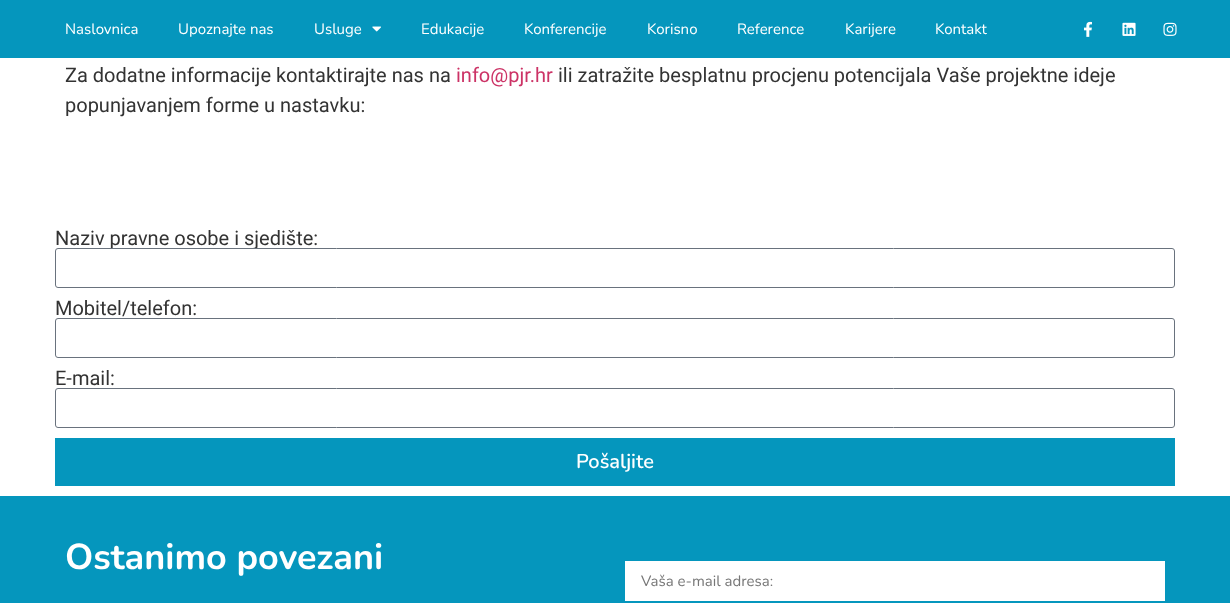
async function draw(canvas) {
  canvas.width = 1230
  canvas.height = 603
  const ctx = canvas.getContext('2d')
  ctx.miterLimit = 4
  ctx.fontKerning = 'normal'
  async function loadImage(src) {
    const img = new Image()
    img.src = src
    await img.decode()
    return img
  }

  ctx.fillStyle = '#fff'
  ctx.fillRect(0, 0, 1230, 603)
  ctx.fillStyle = '#0596bd'
  ctx.fillRect(0, 0, 1230, 58)
  ctx.font = '15px Nunito'
  ctx.fillStyle = '#fff'
  ctx.fillText('Naslovnica', 65, 34)
  ctx.fillText('Upoznajte nas', 178, 34)
  ctx.fillText('Usluge', 314, 34)
  ctx.drawImage(await loadImage('image0.png'), 372, 26, 9, 6)
  ctx.fillText('Edukacije', 421, 34)
  ctx.fillText('Konferencije', 524, 34)
  ctx.fillText('Korisno', 647, 34)
  ctx.fillText('Reference', 737, 34)
  ctx.fillText('Karijere', 845, 34)
  ctx.fillText('Kontakt', 935, 34)
  ctx.drawImage(await loadImage('image1.png'), 1084, 21, 8, 16)
  ctx.drawImage(await loadImage('image2.png'), 1122, 22, 14, 14)
  ctx.drawImage(await loadImage('image3.png'), 1163, 22, 14, 14)
  ctx.font = '20px Roboto'
  ctx.fillStyle = '#333'
  ctx.fillText('Za dodatne informacije kontaktirajte nas na', 65, 82)
  ctx.fillStyle = '#c36'
  ctx.fillText('info@pjr.hr', 456, 82)
  ctx.fillStyle = '#333'
  ctx.fillText('ili zatražite besplatnu procjenu potencijala Vaše projektne ideje', 558, 82)
  ctx.fillText('popunjavanjem forme u nastavku:', 65, 112)
  ctx.fillText('Naziv pravne osobe i sjedište:', 55, 245)
  ctx.fillStyle = '#fff'
  ctx.beginPath()
  ctx.roundRect(55.5, 248.5, 1119, 39, 2.5)
  ctx.fill()
  ctx.strokeStyle = '#69727d'
  ctx.stroke()
  ctx.fillStyle = '#333'
  ctx.fillText('Mobitel/telefon:', 55, 315)
  ctx.beginPath()
  ctx.roundRect(55.5, 318.5, 1119, 39, 2.5)
  ctx.stroke()
  ctx.fillText('E-mail:', 55, 385)
  ctx.beginPath()
  ctx.roundRect(55.5, 388.5, 1119, 39, 2.5)
  ctx.stroke()
  ctx.fillStyle = '#0596bd'
  ctx.fillRect(55, 438, 1120, 48)
  ctx.font = '600 20px Nunito'
  ctx.fillStyle = '#fff'
  ctx.fillText('Pošaljite', 576, 468)
  ctx.fillStyle = '#0596bd'
  ctx.fillRect(0, 496, 1230, 107)
  ctx.font = 'bold 36px Nunito'
  ctx.fillStyle = '#fff'
  ctx.fillText('Ostanimo povezani', 65, 569)
  ctx.fillRect(625, 561, 540, 40)
  ctx.font = '15px Nunito'
  ctx.fillStyle = '#777'
  ctx.fillText('Vaša e-mail adresa:', 641, 586)
}

draw(document.querySelector('canvas'))
